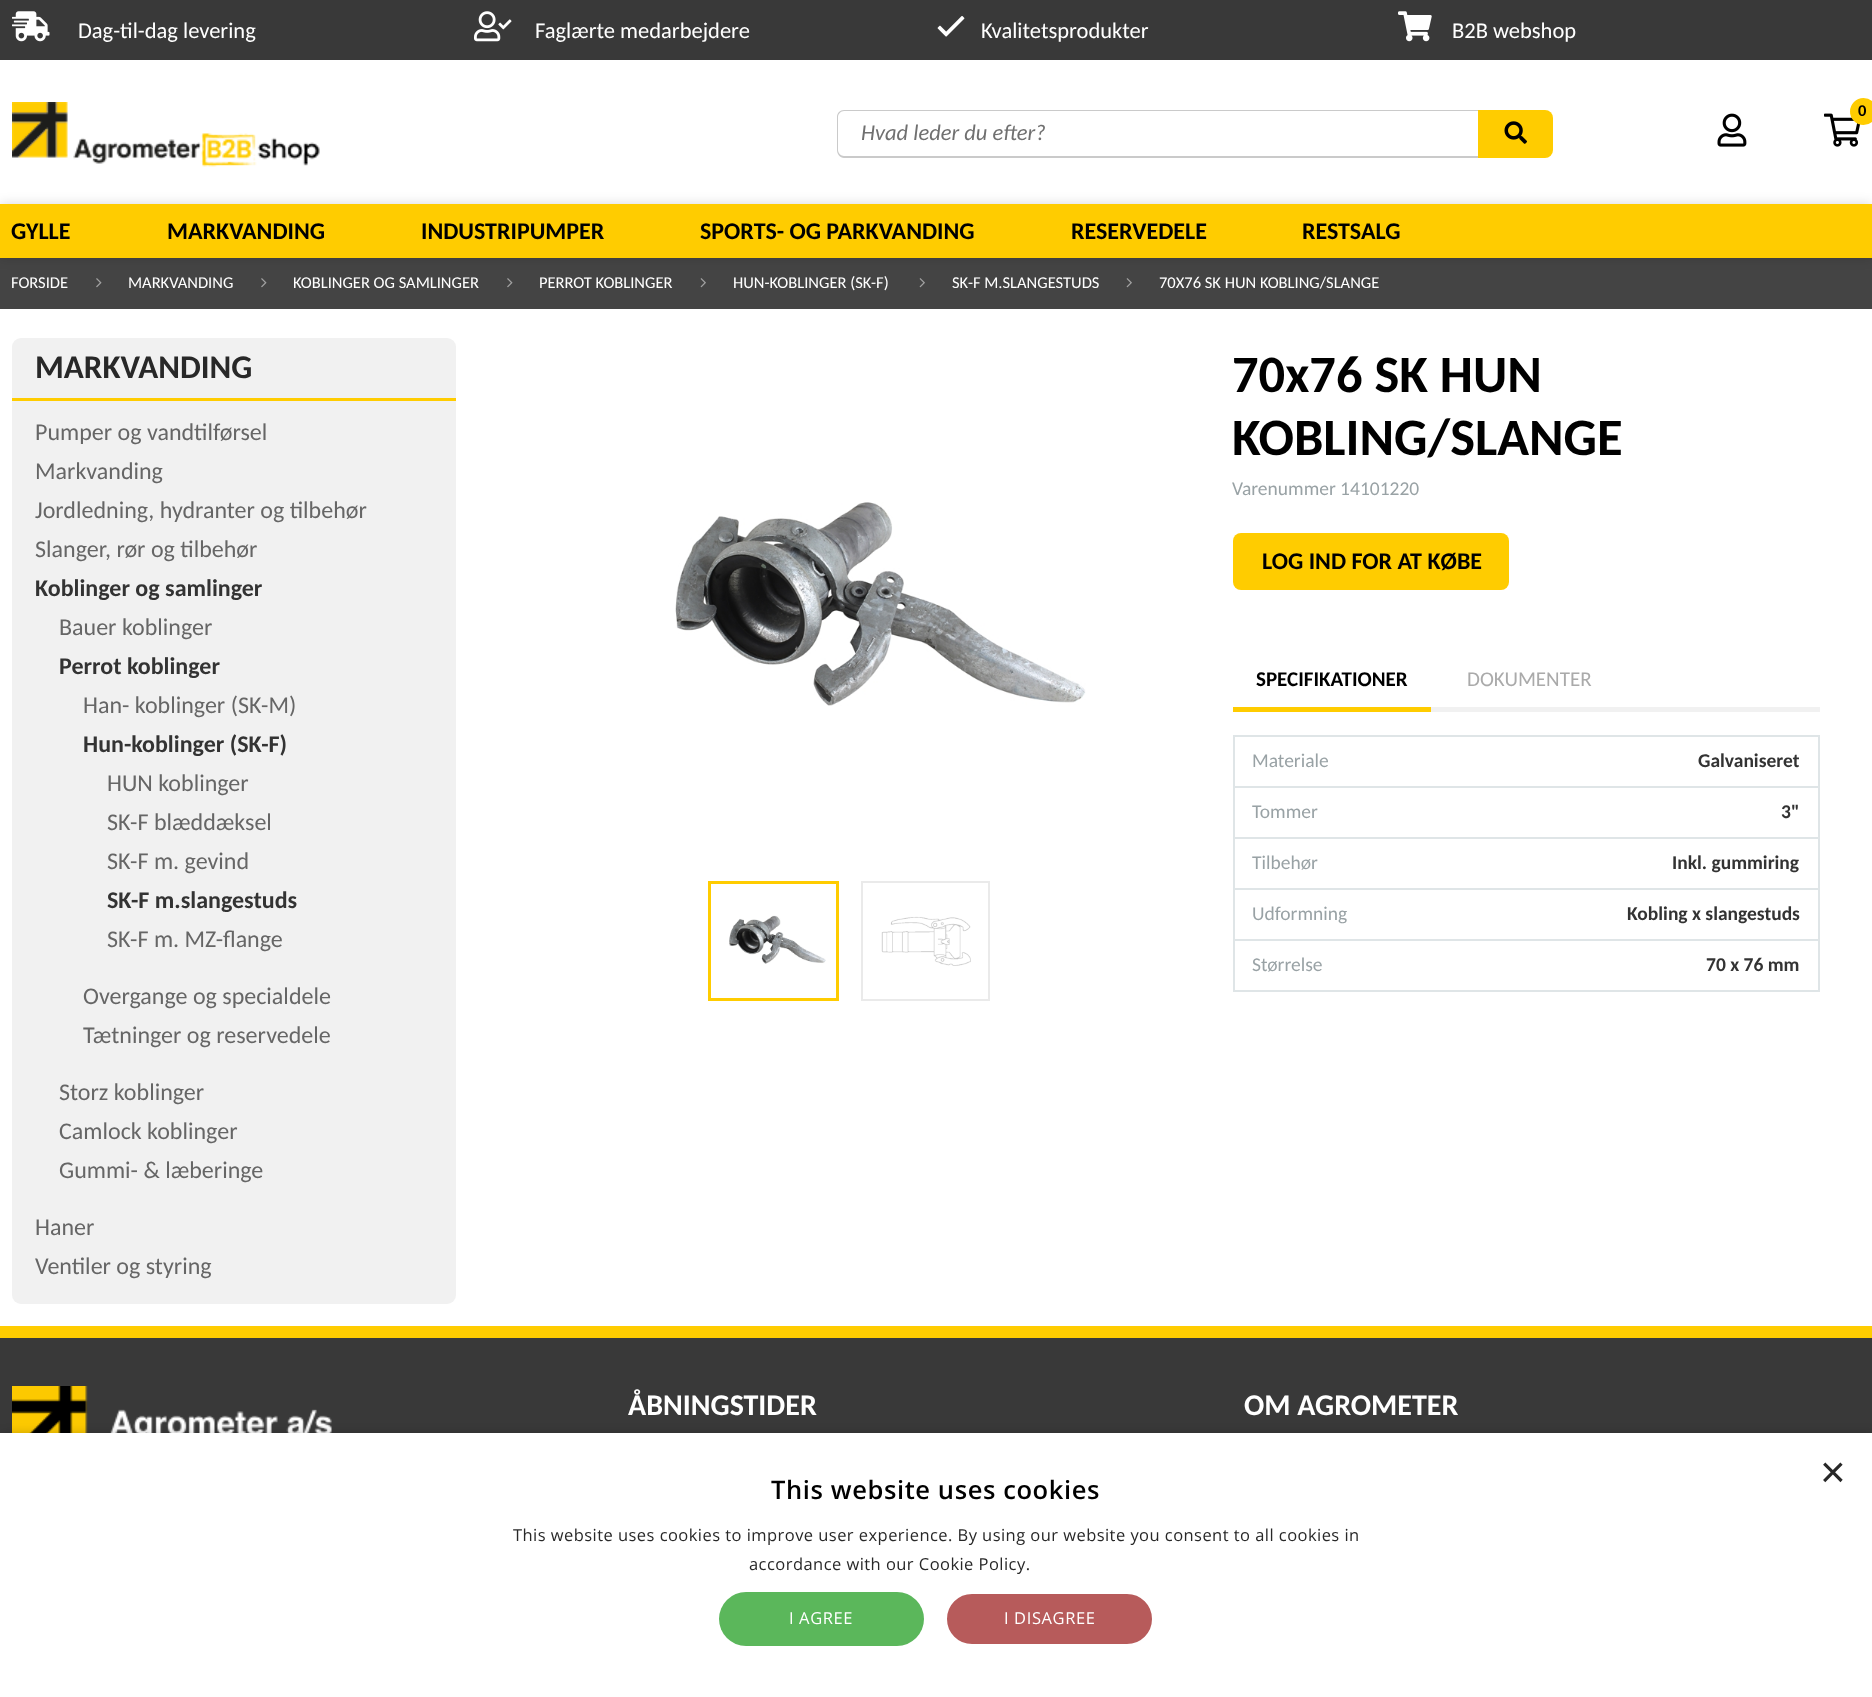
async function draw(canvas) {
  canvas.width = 1872
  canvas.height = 1697
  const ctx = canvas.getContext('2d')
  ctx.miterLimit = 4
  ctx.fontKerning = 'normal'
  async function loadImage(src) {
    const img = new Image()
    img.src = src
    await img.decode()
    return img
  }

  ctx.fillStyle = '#fff'
  ctx.fillRect(0, 0, 1872, 1697)
  ctx.fillStyle = '#393939'
  ctx.fillRect(0, 0, 1872, 60)
  ctx.drawImage(await loadImage('image0.png'), 12, 11, 38, 31)
  ctx.font = '22.5px Carlito'
  ctx.fillStyle = '#fff'
  ctx.fillText('Dag-til-dag levering', 78, 38)
  ctx.drawImage(await loadImage('image1.png'), 474, 11, 38, 31)
  ctx.fillText('Faglærte medarbejdere', 535, 38)
  ctx.drawImage(await loadImage('image2.png'), 937, 16, 28, 21)
  ctx.fillText('Kvalitetsprodukter', 981, 38)
  ctx.drawImage(await loadImage('image3.png'), 1398, 11, 34, 31)
  ctx.fillText('B2B webshop', 1452, 38)
  ctx.drawImage(await loadImage('image4.png'), 12, 102, 308, 65)
  ctx.drawImage(await loadImage('image5.png'), 1824, 113, 37, 34)
  ctx.fillStyle = '#fc0'
  ctx.beginPath()
  ctx.arc(1863.5, 111.5, 13.5, 0, 2 * Math.PI)
  ctx.fill()
  ctx.font = 'bold 16.5px Carlito'
  ctx.fillStyle = '#000'
  ctx.fillText('0', 1858, 116)
  ctx.drawImage(await loadImage('image6.png'), 1717, 113, 30, 34)
  ctx.fillStyle = '#cacaca'
  ctx.beginPath()
  ctx.moveTo(844, 110)
  ctx.lineTo(1478, 110)
  ctx.lineTo(1478, 158)
  ctx.lineTo(844, 158)
  ctx.bezierCurveTo(840, 158, 837, 154, 837, 150)
  ctx.lineTo(837, 117)
  ctx.bezierCurveTo(837, 113, 840, 110, 844, 110)
  ctx.closePath()
  ctx.moveTo(844, 111)
  ctx.lineTo(1478, 111)
  ctx.lineTo(1478, 156)
  ctx.lineTo(844, 156)
  ctx.bezierCurveTo(841, 156, 838, 153, 838, 150)
  ctx.lineTo(838, 117)
  ctx.bezierCurveTo(838, 114, 841, 111, 844, 111)
  ctx.closePath()
  ctx.fill('evenodd')
  ctx.font = 'italic 22.5px Carlito'
  ctx.fillStyle = '#707070'
  ctx.fillText('Hvad leder du efter?', 861, 140)
  ctx.fillStyle = '#fc0'
  ctx.beginPath()
  ctx.roundRect(1478, 110, 75, 48, [0, 8, 8, 0])
  ctx.fill()
  ctx.drawImage(await loadImage('image7.png'), 1504, 121, 23, 23)
  ctx.fillStyle = '#444'
  ctx.fillRect(0, 258, 1872, 51)
  ctx.fillStyle = '#00000026'
  ctx.filter = 'blur(6px)'
  ctx.beginPath()
  ctx.rect(0, 204, 1872, 54)
  ctx.fill()
  ctx.filter = 'none'
  ctx.fillStyle = '#fc0'
  ctx.fillRect(0, 204, 1872, 54)
  ctx.font = 'bold 24px Carlito'
  ctx.fillStyle = '#000'
  ctx.fillText('GYLLE', 11, 239)
  ctx.fillText('MARKVANDING', 167, 239)
  ctx.fillText('INDUSTRIPUMPER', 421, 239)
  ctx.fillText('SPORTS- OG PARKVANDING', 700, 239)
  ctx.fillText('RESERVEDELE', 1071, 239)
  ctx.fillText('RESTSALG', 1302, 239)
  ctx.font = '16.5px Carlito'
  ctx.fillStyle = '#fff'
  ctx.fillText('FORSIDE', 11, 288)
  ctx.drawImage(await loadImage('image8.png'), 96, 278, 6, 10)
  ctx.fillText('MARKVANDING', 128, 288)
  ctx.drawImage(await loadImage('image8.png'), 261, 278, 6, 10)
  ctx.fillText('KOBLINGER OG SAMLINGER', 293, 288)
  ctx.drawImage(await loadImage('image8.png'), 507, 278, 6, 10)
  ctx.fillText('PERROT KOBLINGER', 539, 288)
  ctx.drawImage(await loadImage('image9.png'), 700, 278, 6, 10)
  ctx.fillText('HUN-KOBLINGER (SK-F)', 733, 288)
  ctx.drawImage(await loadImage('image9.png'), 919, 278, 6, 10)
  ctx.fillText('SK-F M.SLANGESTUDS', 952, 288)
  ctx.drawImage(await loadImage('image9.png'), 1126, 278, 6, 10)
  ctx.fillText('70X76 SK HUN KOBLING/SLANGE', 1159, 288)
  ctx.fillStyle = '#f1f1f1'
  ctx.beginPath()
  ctx.roundRect(12, 338, 444, 63, [9, 9, 0, 0])
  ctx.fill()
  ctx.fillStyle = '#fc0'
  ctx.fillRect(12, 398, 444, 3)
  ctx.font = 'bold 33px Carlito'
  ctx.fillStyle = '#282828'
  ctx.fillText('MARKVANDING', 35, 378)
  ctx.fillStyle = '#f1f1f1'
  ctx.beginPath()
  ctx.roundRect(12, 401, 444, 903, [0, 0, 9, 9])
  ctx.fill()
  ctx.font = '24px Carlito'
  ctx.fillStyle = '#666'
  ctx.fillText('Pumper og vandtilførsel', 35, 440)
  ctx.fillText('Markvanding', 35, 479)
  ctx.fillText('Jordledning, hydranter og tilbehør', 35, 518)
  ctx.fillText('Slanger, rør og tilbehør', 35, 557)
  ctx.font = 'bold 24px Carlito'
  ctx.fillStyle = '#333'
  ctx.fillText('Koblinger og samlinger', 35, 596)
  ctx.font = '24px Carlito'
  ctx.fillStyle = '#666'
  ctx.fillText('Bauer koblinger', 59, 635)
  ctx.font = 'bold 24px Carlito'
  ctx.fillStyle = '#333'
  ctx.fillText('Perrot koblinger', 59, 674)
  ctx.font = '24px Carlito'
  ctx.fillStyle = '#666'
  ctx.fillText('Han- koblinger (SK-M)', 83, 713)
  ctx.font = 'bold 24px Carlito'
  ctx.fillStyle = '#333'
  ctx.fillText('Hun-koblinger (SK-F)', 83, 752)
  ctx.font = '24px Carlito'
  ctx.fillStyle = '#666'
  ctx.fillText('HUN koblinger', 107, 791)
  ctx.fillText('SK-F blæddæksel', 107, 830)
  ctx.fillText('SK-F m. gevind', 107, 869)
  ctx.font = 'bold 24px Carlito'
  ctx.fillStyle = '#333'
  ctx.fillText('SK-F m.slangestuds', 107, 908)
  ctx.font = '24px Carlito'
  ctx.fillStyle = '#666'
  ctx.fillText('SK-F m. MZ-flange', 107, 947)
  ctx.fillText('Overgange og specialdele', 83, 1004)
  ctx.fillText('Tætninger og reservedele', 83, 1043)
  ctx.fillText('Storz koblinger', 59, 1100)
  ctx.fillText('Camlock koblinger', 59, 1139)
  ctx.fillText('Gummi- & læberinge', 59, 1178)
  ctx.fillText('Haner', 35, 1235)
  ctx.fillText('Ventiler og styring', 35, 1274)
  ctx.drawImage(await loadImage('image10.png'), 675, 502, 411, 204)
  ctx.strokeStyle = '#fc0'
  ctx.lineWidth = 3
  ctx.strokeRect(709.5, 882.5, 128, 117)
  ctx.drawImage(await loadImage('image11.png'), 729, 915, 97, 49)
  ctx.strokeStyle = '#eaeaea'
  ctx.lineWidth = 2
  ctx.strokeRect(862, 882, 127, 118)
  ctx.drawImage(await loadImage('image12.png'), 881, 916, 90, 50)
  ctx.font = 'bold 52.5px Carlito'
  ctx.fillStyle = '#000'
  ctx.fillText('70x76 SK HUN', 1232, 392)
  ctx.fillText('KOBLING/SLANGE', 1232, 455)
  ctx.font = '19.5px Carlito'
  ctx.fillStyle = '#99a2a5'
  ctx.fillText('Varenummer 14101220', 1232, 495)
  ctx.fillStyle = '#fc0'
  ctx.beginPath()
  ctx.roundRect(1233, 533, 276, 57, 8)
  ctx.fill()
  ctx.font = 'bold 24px Carlito'
  ctx.fillStyle = '#000'
  ctx.fillText('LOG IND FOR AT KØBE', 1262, 569)
  ctx.fillStyle = '#fc0'
  ctx.fillRect(1233, 707, 198, 5)
  ctx.font = 'bold 21px Carlito'
  ctx.fillStyle = '#000'
  ctx.fillText('SPECIFIKATIONER', 1256, 686)
  ctx.fillStyle = '#f1f1f1'
  ctx.fillRect(1431, 707, 389, 5)
  ctx.font = '21px Carlito'
  ctx.fillStyle = '#aaa'
  ctx.fillText('DOKUMENTER', 1467, 686)
  ctx.strokeStyle = '#dfe5e7'
  ctx.strokeRect(1234, 736, 585, 255)
  ctx.fillStyle = '#dfe5e7'
  ctx.fillRect(1235, 786, 583, 2)
  ctx.font = '19.5px Carlito'
  ctx.fillStyle = '#99a2a5'
  ctx.fillText('Materiale', 1252, 767)
  ctx.font = 'bold 19.5px Carlito'
  ctx.fillStyle = '#333'
  ctx.fillText('Galvaniseret', 1698, 767)
  ctx.fillStyle = '#dfe5e7'
  ctx.fillRect(1235, 837, 583, 2)
  ctx.font = '19.5px Carlito'
  ctx.fillStyle = '#99a2a5'
  ctx.fillText('Tommer', 1252, 818)
  ctx.font = 'bold 19.5px Carlito'
  ctx.fillStyle = '#333'
  ctx.fillText('3"', 1781, 818)
  ctx.fillStyle = '#dfe5e7'
  ctx.fillRect(1235, 888, 583, 2)
  ctx.font = '19.5px Carlito'
  ctx.fillStyle = '#99a2a5'
  ctx.fillText('Tilbehør', 1252, 869)
  ctx.font = 'bold 19.5px Carlito'
  ctx.fillStyle = '#333'
  ctx.fillText('Inkl. gummiring', 1672, 869)
  ctx.fillStyle = '#dfe5e7'
  ctx.fillRect(1235, 939, 583, 2)
  ctx.font = '19.5px Carlito'
  ctx.fillStyle = '#99a2a5'
  ctx.fillText('Udformning', 1252, 920)
  ctx.font = 'bold 19.5px Carlito'
  ctx.fillStyle = '#333'
  ctx.fillText('Kobling x slangestuds', 1627, 920)
  ctx.font = '19.5px Carlito'
  ctx.fillStyle = '#99a2a5'
  ctx.fillText('Størrelse', 1252, 971)
  ctx.font = 'bold 19.5px Carlito'
  ctx.fillStyle = '#333'
  ctx.fillText('70 x 76 mm', 1706, 971)
  ctx.fillStyle = '#393939'
  ctx.fillRect(0, 1338, 1872, 95)
  ctx.fillStyle = '#fc0'
  ctx.fillRect(0, 1326, 1872, 12)
  ctx.drawImage(await loadImage('image13.png'), 12, 1386, 320, 47)
  ctx.font = 'bold 30px Carlito'
  ctx.fillStyle = '#fff'
  ctx.fillText('ÅBNINGSTIDER', 628, 1415)
  ctx.fillText('OM AGROMETER', 1244, 1415)
  ctx.fillStyle = '#00000059'
  ctx.filter = 'blur(6px)'
  ctx.beginPath()
  ctx.rect(2, 1436, 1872, 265)
  ctx.fill()
  ctx.filter = 'none'
  ctx.fillStyle = '#fff'
  ctx.fillRect(0, 1433, 1872, 264)
  ctx.font = '44px Liberation Sans'
  ctx.fillStyle = '#282828'
  ctx.fillText('×', 1820, 1487)
  ctx.letterSpacing = '0.6px'
  ctx.font = '600 25.5px Open Sans'
  ctx.fillStyle = '#000'
  ctx.fillText('This website uses cookies', 771, 1499)
  ctx.letterSpacing = '0.45px'
  ctx.font = '16.5px Open Sans'
  ctx.fillStyle = '#282828'
  ctx.fillText('This website uses cookies to improve user experience. By using our website you consent to all cookies in', 513, 1541)
  ctx.fillText('accordance with our Cookie Policy.', 749, 1570)
  ctx.fillStyle = '#5bb75b'
  ctx.beginPath()
  ctx.roundRect(719, 1592, 205, 54, 27)
  ctx.fill()
  ctx.letterSpacing = '0.6px'
  ctx.fillStyle = '#fff'
  ctx.fillText('I AGREE', 789, 1624)
  ctx.fillStyle = '#b75b5b'
  ctx.beginPath()
  ctx.roundRect(946, 1593, 207, 52, 26)
  ctx.fill()
  ctx.strokeStyle = '#fff'
  ctx.stroke()
  ctx.fillStyle = '#fff'
  ctx.fillText('I DISAGREE', 1004, 1624)
}

draw(document.querySelector('canvas'))
